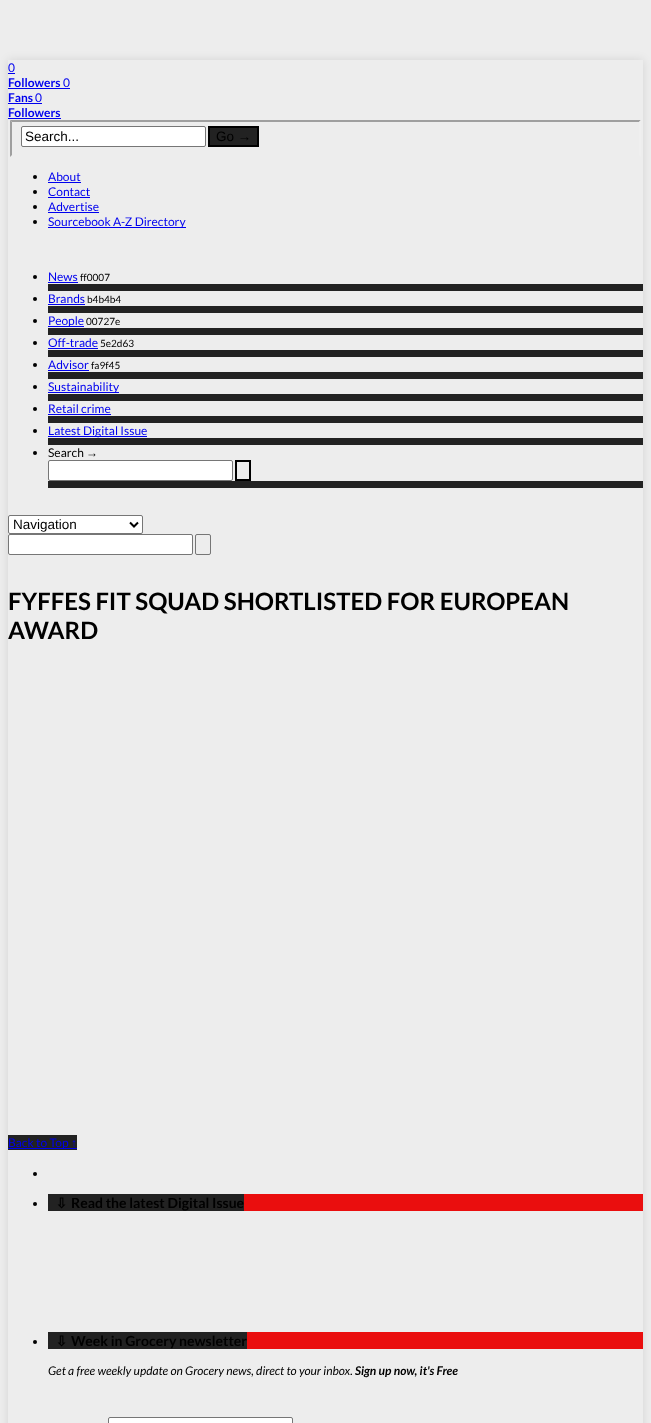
async function draw(canvas) {
  canvas.width = 651
  canvas.height = 1423
  const ctx = canvas.getContext('2d')
  ctx.miterLimit = 4
  ctx.fontKerning = 'normal'

  ctx.fillStyle = '#ededed'
  ctx.fillRect(0, 0, 651, 1423)
  ctx.save()
  ctx.beginPath()
  ctx.moveTo(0, 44)
  ctx.lineTo(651, 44)
  ctx.lineTo(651, 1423)
  ctx.lineTo(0, 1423)
  ctx.closePath()
  ctx.moveTo(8, 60)
  ctx.lineTo(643, 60)
  ctx.lineTo(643, 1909)
  ctx.lineTo(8, 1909)
  ctx.closePath()
  ctx.clip('evenodd')
  ctx.fillStyle = '#0000001a'
  ctx.filter = 'blur(5px)'
  ctx.beginPath()
  ctx.rect(8, 60, 635, 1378)
  ctx.fill()
  ctx.filter = 'none'
  ctx.restore()
  ctx.font = '12px Lato'
  ctx.fillStyle = '#00e'
  ctx.fillText('0', 8, 72)
  ctx.fillRect(8, 73, 7, 1)
  ctx.font = 'bold 12px Lato'
  ctx.fillText('Followers', 8, 87)
  ctx.fillRect(8, 88, 62, 1)
  ctx.font = '12px Lato'
  ctx.fillText('0', 63, 87)
  ctx.font = 'bold 12px Lato'
  ctx.fillText('Fans', 8, 102)
  ctx.fillRect(8, 103, 34, 1)
  ctx.font = '12px Lato'
  ctx.fillText('0', 35, 102)
  ctx.font = 'bold 12px Lato'
  ctx.fillText('Followers', 8, 117)
  ctx.fillRect(8, 118, 53, 1)
  ctx.fillStyle = '#9f9f9f'
  ctx.beginPath()
  ctx.moveTo(10, 120)
  ctx.lineTo(641, 120)
  ctx.lineTo(639, 122)
  ctx.lineTo(12, 122)
  ctx.closePath()
  ctx.fill()
  ctx.fillStyle = '#efefef'
  ctx.beginPath()
  ctx.moveTo(641, 120)
  ctx.lineTo(641, 157)
  ctx.lineTo(639, 155)
  ctx.lineTo(639, 122)
  ctx.closePath()
  ctx.fill()
  ctx.fillStyle = '#9f9f9f'
  ctx.beginPath()
  ctx.moveTo(10, 157)
  ctx.lineTo(10, 120)
  ctx.lineTo(12, 122)
  ctx.lineTo(12, 155)
  ctx.closePath()
  ctx.fill()
  ctx.fillStyle = '#fff'
  ctx.beginPath()
  ctx.roundRect(21.5, 126.5, 184, 20, 1.5)
  ctx.fill()
  ctx.strokeStyle = '#767676'
  ctx.stroke()
  ctx.font = '13.5px Liberation Sans'
  ctx.fillStyle = '#000'
  ctx.fillText('Search...', 25, 141)
  ctx.fillStyle = '#222'
  ctx.beginPath()
  ctx.rect(209, 127, 49, 19)
  ctx.fill()
  ctx.strokeStyle = '#000'
  ctx.lineWidth = 2
  ctx.stroke()
  ctx.fillStyle = '#000'
  ctx.fillText('Go →', 216, 141)
  ctx.beginPath()
  ctx.arc(35, 177, 2, 0, 2 * Math.PI)
  ctx.fill()
  ctx.font = '12px Lato'
  ctx.fillStyle = '#00e'
  ctx.fillText('About', 48, 181)
  ctx.fillRect(48, 182, 33, 1)
  ctx.fillStyle = '#000'
  ctx.beginPath()
  ctx.arc(35, 192, 2, 0, 2 * Math.PI)
  ctx.fill()
  ctx.fillStyle = '#00e'
  ctx.fillText('Contact', 48, 196)
  ctx.fillRect(48, 197, 42, 1)
  ctx.fillStyle = '#000'
  ctx.beginPath()
  ctx.arc(35, 207, 2, 0, 2 * Math.PI)
  ctx.fill()
  ctx.fillStyle = '#00e'
  ctx.fillText('Advertise', 48, 211)
  ctx.fillRect(48, 212, 51, 1)
  ctx.fillStyle = '#000'
  ctx.beginPath()
  ctx.arc(35, 222, 2, 0, 2 * Math.PI)
  ctx.fill()
  ctx.fillStyle = '#00e'
  ctx.fillRect(48, 227, 138, 1)
  ctx.fillText('Sourcebook A-Z Directory', 48, 226)
  ctx.fillStyle = '#222'
  ctx.fillRect(48, 284, 595, 7)
  ctx.fillStyle = '#000'
  ctx.beginPath()
  ctx.arc(35, 277, 2, 0, 2 * Math.PI)
  ctx.fill()
  ctx.fillStyle = '#00e'
  ctx.fillText('News', 48, 281)
  ctx.fillRect(48, 282, 30, 1)
  ctx.font = '10px Lato'
  ctx.fillStyle = '#000'
  ctx.fillText('ff0007', 80, 281)
  ctx.fillStyle = '#222'
  ctx.fillRect(48, 306, 595, 7)
  ctx.fillStyle = '#000'
  ctx.beginPath()
  ctx.arc(35, 299, 2, 0, 2 * Math.PI)
  ctx.fill()
  ctx.font = '12px Lato'
  ctx.fillStyle = '#00e'
  ctx.fillText('Brands', 48, 303)
  ctx.fillRect(48, 304, 37, 1)
  ctx.font = '10px Lato'
  ctx.fillStyle = '#000'
  ctx.fillText('b4b4b4', 87, 303)
  ctx.fillStyle = '#222'
  ctx.fillRect(48, 328, 595, 7)
  ctx.fillStyle = '#000'
  ctx.beginPath()
  ctx.arc(35, 321, 2, 0, 2 * Math.PI)
  ctx.fill()
  ctx.fillStyle = '#00e'
  ctx.fillRect(48, 326, 36, 1)
  ctx.font = '12px Lato'
  ctx.fillText('People', 48, 325)
  ctx.font = '10px Lato'
  ctx.fillStyle = '#000'
  ctx.fillText('00727e', 86, 325)
  ctx.fillStyle = '#222'
  ctx.fillRect(48, 350, 595, 7)
  ctx.fillStyle = '#000'
  ctx.beginPath()
  ctx.arc(35, 343, 2, 0, 2 * Math.PI)
  ctx.fill()
  ctx.font = '12px Lato'
  ctx.fillStyle = '#00e'
  ctx.fillText('Off-trade', 48, 347)
  ctx.fillRect(48, 348, 50, 1)
  ctx.font = '10px Lato'
  ctx.fillStyle = '#000'
  ctx.fillText('5e2d63', 100, 347)
  ctx.fillStyle = '#222'
  ctx.fillRect(48, 372, 595, 7)
  ctx.fillStyle = '#000'
  ctx.beginPath()
  ctx.arc(35, 365, 2, 0, 2 * Math.PI)
  ctx.fill()
  ctx.font = '12px Lato'
  ctx.fillStyle = '#00e'
  ctx.fillText('Advisor', 48, 369)
  ctx.fillRect(48, 370, 41, 1)
  ctx.font = '10px Lato'
  ctx.fillStyle = '#000'
  ctx.fillText('fa9f45', 91, 369)
  ctx.fillStyle = '#222'
  ctx.fillRect(48, 394, 595, 7)
  ctx.fillStyle = '#000'
  ctx.beginPath()
  ctx.arc(35, 387, 2, 0, 2 * Math.PI)
  ctx.fill()
  ctx.fillStyle = '#00e'
  ctx.fillRect(48, 392, 71, 1)
  ctx.font = '12px Lato'
  ctx.fillText('Sustainability', 48, 391)
  ctx.fillStyle = '#222'
  ctx.fillRect(48, 416, 595, 7)
  ctx.fillStyle = '#000'
  ctx.beginPath()
  ctx.arc(35, 409, 2, 0, 2 * Math.PI)
  ctx.fill()
  ctx.fillStyle = '#00e'
  ctx.fillText('Retail crime', 48, 413)
  ctx.fillRect(48, 414, 63, 1)
  ctx.fillStyle = '#222'
  ctx.fillRect(48, 438, 595, 7)
  ctx.fillStyle = '#000'
  ctx.beginPath()
  ctx.arc(35, 431, 2, 0, 2 * Math.PI)
  ctx.fill()
  ctx.fillStyle = '#00e'
  ctx.fillRect(48, 436, 99, 1)
  ctx.fillText('Latest Digital Issue', 48, 435)
  ctx.fillStyle = '#222'
  ctx.fillRect(48, 481, 595, 7)
  ctx.fillStyle = '#000'
  ctx.beginPath()
  ctx.arc(35, 453, 2, 0, 2 * Math.PI)
  ctx.fill()
  ctx.fillText('Search', 48, 457)
  ctx.font = '12px Liberation Sans'
  ctx.fillText('→', 86, 457)
  ctx.fillStyle = '#fff'
  ctx.beginPath()
  ctx.roundRect(48.5, 460.5, 184, 20, 1.5)
  ctx.fill()
  ctx.strokeStyle = '#767676'
  ctx.lineWidth = 1
  ctx.stroke()
  ctx.strokeStyle = '#000'
  ctx.lineWidth = 2
  ctx.strokeRect(236, 461, 14, 19)
  ctx.beginPath()
  ctx.roundRect(8.5, 515.5, 134, 18, 1.5)
  ctx.fill()
  ctx.strokeStyle = '#767676'
  ctx.lineWidth = 1
  ctx.stroke()
  ctx.beginPath()
  ctx.moveTo(130, 522.5)
  ctx.lineTo(134, 526.5)
  ctx.lineTo(138, 522.5)
  ctx.strokeStyle = '#000'
  ctx.lineWidth = 2
  ctx.stroke()
  ctx.font = '13.5px Liberation Sans'
  ctx.fillStyle = '#000'
  ctx.fillText('Navigation', 13, 529)
  ctx.fillStyle = '#fff'
  ctx.beginPath()
  ctx.roundRect(8.5, 534.5, 184, 20, 1.5)
  ctx.fill()
  ctx.strokeStyle = '#767676'
  ctx.lineWidth = 1
  ctx.stroke()
  ctx.beginPath()
  ctx.roundRect(195.5, 534.5, 15, 20, 1.5)
  ctx.stroke()
  ctx.font = 'bold 24px Lato'
  ctx.fillStyle = '#000'
  ctx.fillText('FYFFES FIT SQUAD SHORTLISTED FOR EUROPEAN', 8, 610)
  ctx.fillText('AWARD', 8, 639)
  ctx.fillStyle = '#222'
  ctx.fillRect(8, 1135, 69, 15)
  ctx.fillStyle = '#00e'
  ctx.fillRect(8, 1148, 69, 1)
  ctx.font = '12px Lato'
  ctx.fillText('Back to Top', 8, 1147)
  ctx.font = '12px Liberation Sans'
  ctx.fillText('↑', 71, 1147)
  ctx.fillStyle = '#000'
  ctx.beginPath()
  ctx.arc(35, 1174, 2, 0, 2 * Math.PI)
  ctx.fill()
  ctx.beginPath()
  ctx.arc(35, 1204, 2, 0, 2 * Math.PI)
  ctx.fill()
  ctx.fillStyle = '#ea0e0e'
  ctx.fillRect(244, 1194, 399, 17)
  ctx.fillStyle = '#222'
  ctx.fillRect(48, 1194, 196, 17)
  ctx.wordSpacing = '-2px'
  ctx.font = 'bold 14px DejaVu Sans'
  ctx.fillStyle = '#000'
  ctx.fillText(' ⇩', 51, 1208)
  ctx.wordSpacing = '0px'
  ctx.font = 'bold 14px Lato'
  ctx.fillText('Read the latest Digital Issue', 71, 1208)
  ctx.beginPath()
  ctx.arc(35, 1342, 2, 0, 2 * Math.PI)
  ctx.fill()
  ctx.fillStyle = '#ea0e0e'
  ctx.fillRect(247, 1332, 396, 17)
  ctx.fillStyle = '#222'
  ctx.fillRect(48, 1332, 199, 17)
  ctx.wordSpacing = '-2px'
  ctx.font = 'bold 14px DejaVu Sans'
  ctx.fillStyle = '#000'
  ctx.fillText(' ⇩', 51, 1346)
  ctx.wordSpacing = '0px'
  ctx.font = 'bold 14px Lato'
  ctx.fillText('Week in Grocery newsletter', 71, 1346)
  ctx.font = 'italic 12px Lato'
  ctx.fillText('Get a free weekly update on Grocery news, direct to your inbox.', 48, 1375)
  ctx.font = 'italic bold 12px Lato'
  ctx.fillText('Sign up now, it\'s Free', 355, 1375)
  ctx.fillStyle = '#fff'
  ctx.beginPath()
  ctx.roundRect(108.5, 1417.5, 184, 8, 1.5)
  ctx.fill()
  ctx.stroke()
}

draw(document.querySelector('canvas'))
